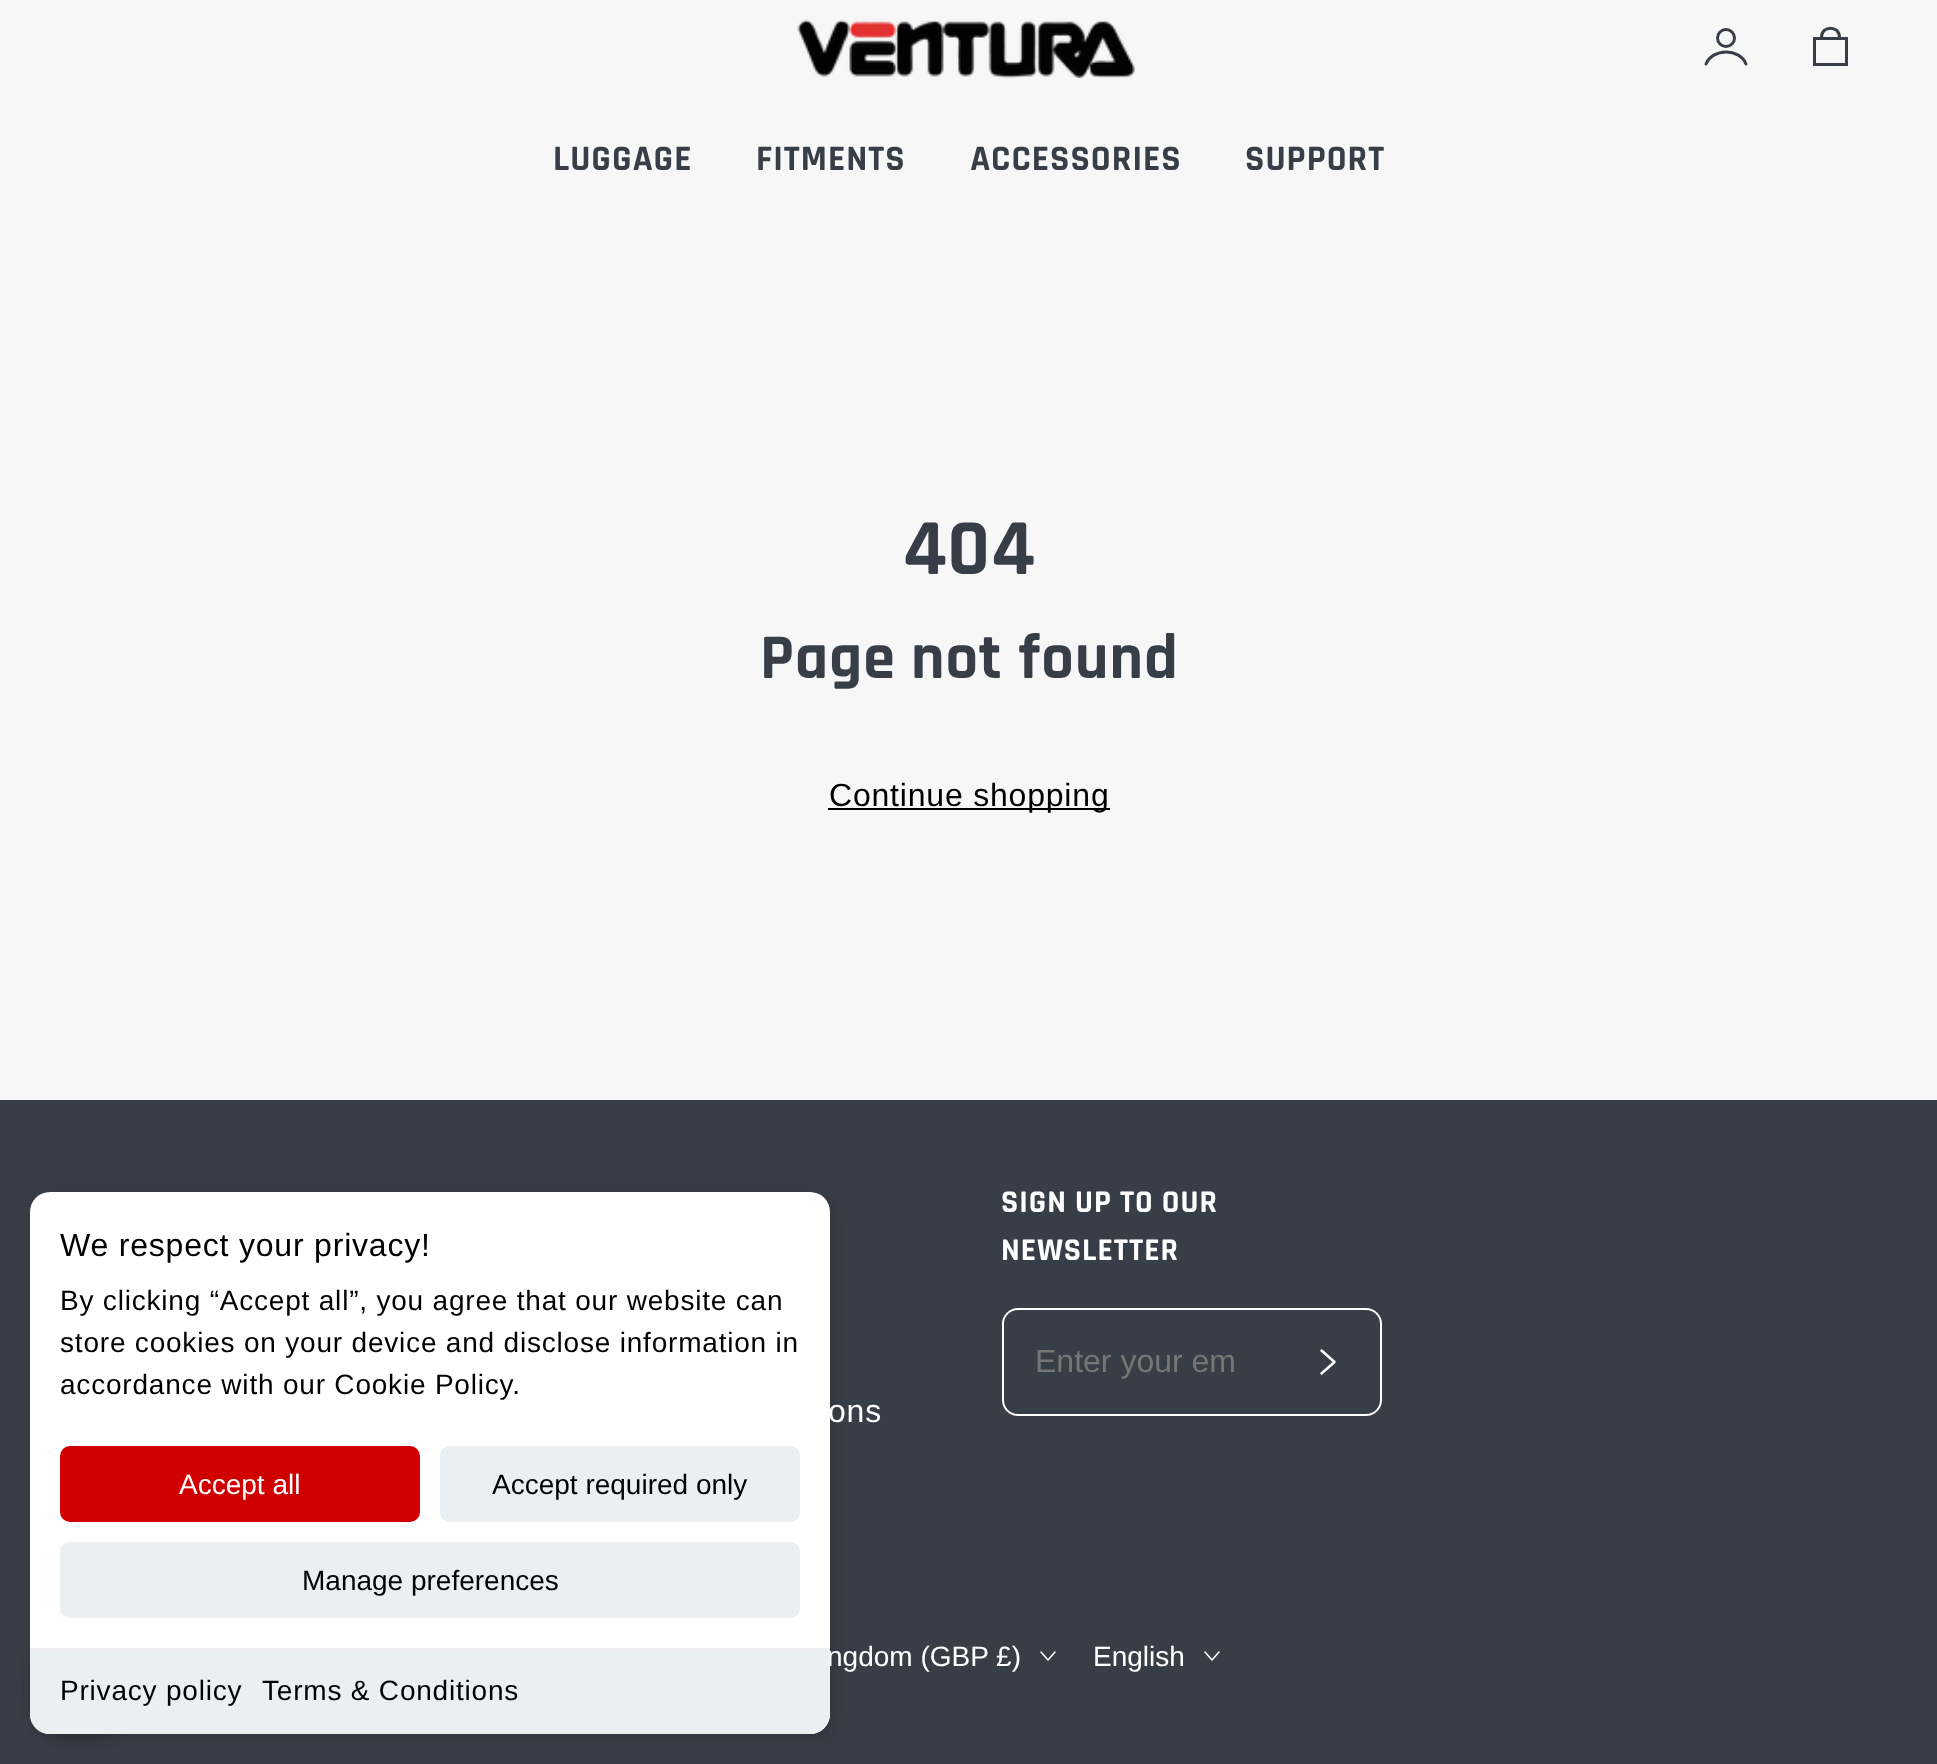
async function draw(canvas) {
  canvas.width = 1937
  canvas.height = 1764
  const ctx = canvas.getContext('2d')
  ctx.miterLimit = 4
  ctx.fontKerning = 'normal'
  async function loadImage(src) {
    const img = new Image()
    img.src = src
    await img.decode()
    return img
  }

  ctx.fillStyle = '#f7f7f7'
  ctx.fillRect(0, 0, 1937, 1764)
  ctx.drawImage(await loadImage('image0.png'), 797, 19, 338, 59)
  ctx.beginPath()
  ctx.arc(1726, 38, 8.5, 0, 2 * Math.PI)
  ctx.strokeStyle = '#383e47'
  ctx.lineWidth = 3
  ctx.stroke()
  ctx.beginPath()
  ctx.moveTo(1706, 64)
  ctx.bezierCurveTo(1712, 48.5, 1739.5, 47.5, 1746, 64)
  ctx.lineCap = 'round'
  ctx.lineJoin = 'round'
  ctx.stroke()
  ctx.lineJoin = 'miter'
  ctx.strokeRect(1814.5, 38.5, 32, 26)
  ctx.beginPath()
  ctx.moveTo(1821.5, 37.5)
  ctx.bezierCurveTo(1821.5, 25, 1839.5, 25, 1839.5, 37.5)
  ctx.stroke()
  ctx.letterSpacing = '1px'
  ctx.font = 'bold 36px Rajdhani'
  ctx.fillStyle = '#383e47'
  ctx.fillText('LUGGAGE', 553, 170)
  ctx.fillText('FITMENTS', 756, 170)
  ctx.fillText('ACCESSORIES', 970, 170)
  ctx.fillText('SUPPORT', 1245, 170)
  ctx.font = 'bold 80px Rajdhani'
  ctx.fillText('404', 903, 574)
  ctx.font = 'bold 64px Rajdhani'
  ctx.fillText('Page not found', 760, 678)
  ctx.fillStyle = '#000'
  ctx.fillRect(828, 808, 282, 2)
  ctx.letterSpacing = '0.8px'
  ctx.font = '32px Arimo'
  ctx.fillText('Continue shopping', 829, 806)
  ctx.fillStyle = '#383e47'
  ctx.fillRect(0, 1100, 1937, 664)
  ctx.fillStyle = '#00000026'
  ctx.filter = 'blur(6px)'
  ctx.beginPath()
  ctx.roundRect(34, 1196, 800, 542, 20)
  ctx.fill()
  ctx.filter = 'none'
  ctx.fillStyle = '#00000033'
  ctx.filter = 'blur(8px)'
  ctx.beginPath()
  ctx.roundRect(32, 1638, 100, 100, 50)
  ctx.fill()
  ctx.filter = 'none'
  ctx.fillStyle = '#fff'
  ctx.beginPath()
  ctx.roundRect(30, 1192, 800, 542, 20)
  ctx.fill()
  ctx.fillStyle = '#000'
  ctx.fillText('We respect your privacy!', 60, 1256)
  ctx.font = '28px Arimo'
  ctx.fillText('By clicking “Accept all”, you agree that our website can', 60, 1310)
  ctx.fillText('store cookies on your device and disclose information in', 60, 1352)
  ctx.fillText('accordance with our Cookie Policy.', 60, 1394)
  ctx.fillStyle = '#d10000'
  ctx.beginPath()
  ctx.roundRect(60, 1446, 360, 76, 10)
  ctx.fill()
  ctx.letterSpacing = '0px'
  ctx.fillStyle = '#fff'
  ctx.fillText('Accept all', 179, 1494)
  ctx.fillStyle = '#eaeff2'
  ctx.beginPath()
  ctx.roundRect(440, 1446, 360, 76, 10)
  ctx.fill()
  ctx.fillStyle = '#000'
  ctx.fillText('Accept required only', 492, 1494)
  ctx.fillStyle = '#eaeff2'
  ctx.beginPath()
  ctx.roundRect(60, 1542, 740, 76, 10)
  ctx.fill()
  ctx.fillStyle = '#000'
  ctx.fillText('Manage preferences', 302, 1590)
  ctx.fillStyle = '#fff'
  ctx.fillText('ngdom (GBP £)', 827, 1666)
  ctx.save()
  ctx.beginPath()
  ctx.roundRect(30, 1192, 800, 542, 20)
  ctx.clip()
  ctx.fillStyle = '#eaeff2'
  ctx.fillRect(30, 1650, 800, 82)
  ctx.restore()
  ctx.fillStyle = '#eee'
  ctx.fillRect(30, 1648, 800, 2)
  ctx.save()
  ctx.beginPath()
  ctx.roundRect(30, 1192, 800, 542, 20)
  ctx.clip()
  ctx.fillRect(41, 1732, 778, 2)
  ctx.restore()
  ctx.letterSpacing = '0.8px'
  ctx.fillStyle = '#000'
  ctx.fillText('Privacy policy', 60, 1700)
  ctx.fillText('Terms & Conditions', 262, 1700)
  ctx.letterSpacing = '1px'
  ctx.font = 'bold 32px Rajdhani'
  ctx.fillStyle = '#fff'
  ctx.fillText('SIGN UP TO OUR', 1001, 1212)
  ctx.fillText('NEWSLETTER', 1001, 1260)
  ctx.beginPath()
  ctx.roundRect(1003, 1309, 378, 106, 15)
  ctx.strokeStyle = '#fff'
  ctx.lineWidth = 2
  ctx.stroke()
  ctx.letterSpacing = '0px'
  ctx.font = '32px Arimo'
  ctx.fillStyle = '#757575'
  ctx.fillText('Enter your em', 1035, 1372)
  ctx.beginPath()
  ctx.moveTo(1321.5, 1350.5)
  ctx.lineTo(1334.5, 1362)
  ctx.lineTo(1321.5, 1373.5)
  ctx.lineWidth = 2.5
  ctx.lineJoin = 'round'
  ctx.stroke()
  ctx.letterSpacing = '0.8px'
  ctx.fillStyle = '#fff'
  ctx.fillText('ons', 828, 1422)
  ctx.beginPath()
  ctx.moveTo(1055, 1652)
  ctx.lineTo(1048, 1660)
  ctx.lineTo(1041, 1652)
  ctx.lineWidth = 1.5
  ctx.stroke()
  ctx.letterSpacing = '0px'
  ctx.font = '28px Arimo'
  ctx.fillText('English', 1093, 1666)
  ctx.beginPath()
  ctx.moveTo(1219, 1652)
  ctx.lineTo(1212, 1660)
  ctx.lineTo(1205, 1652)
  ctx.stroke()
}

draw(document.querySelector('canvas'))
